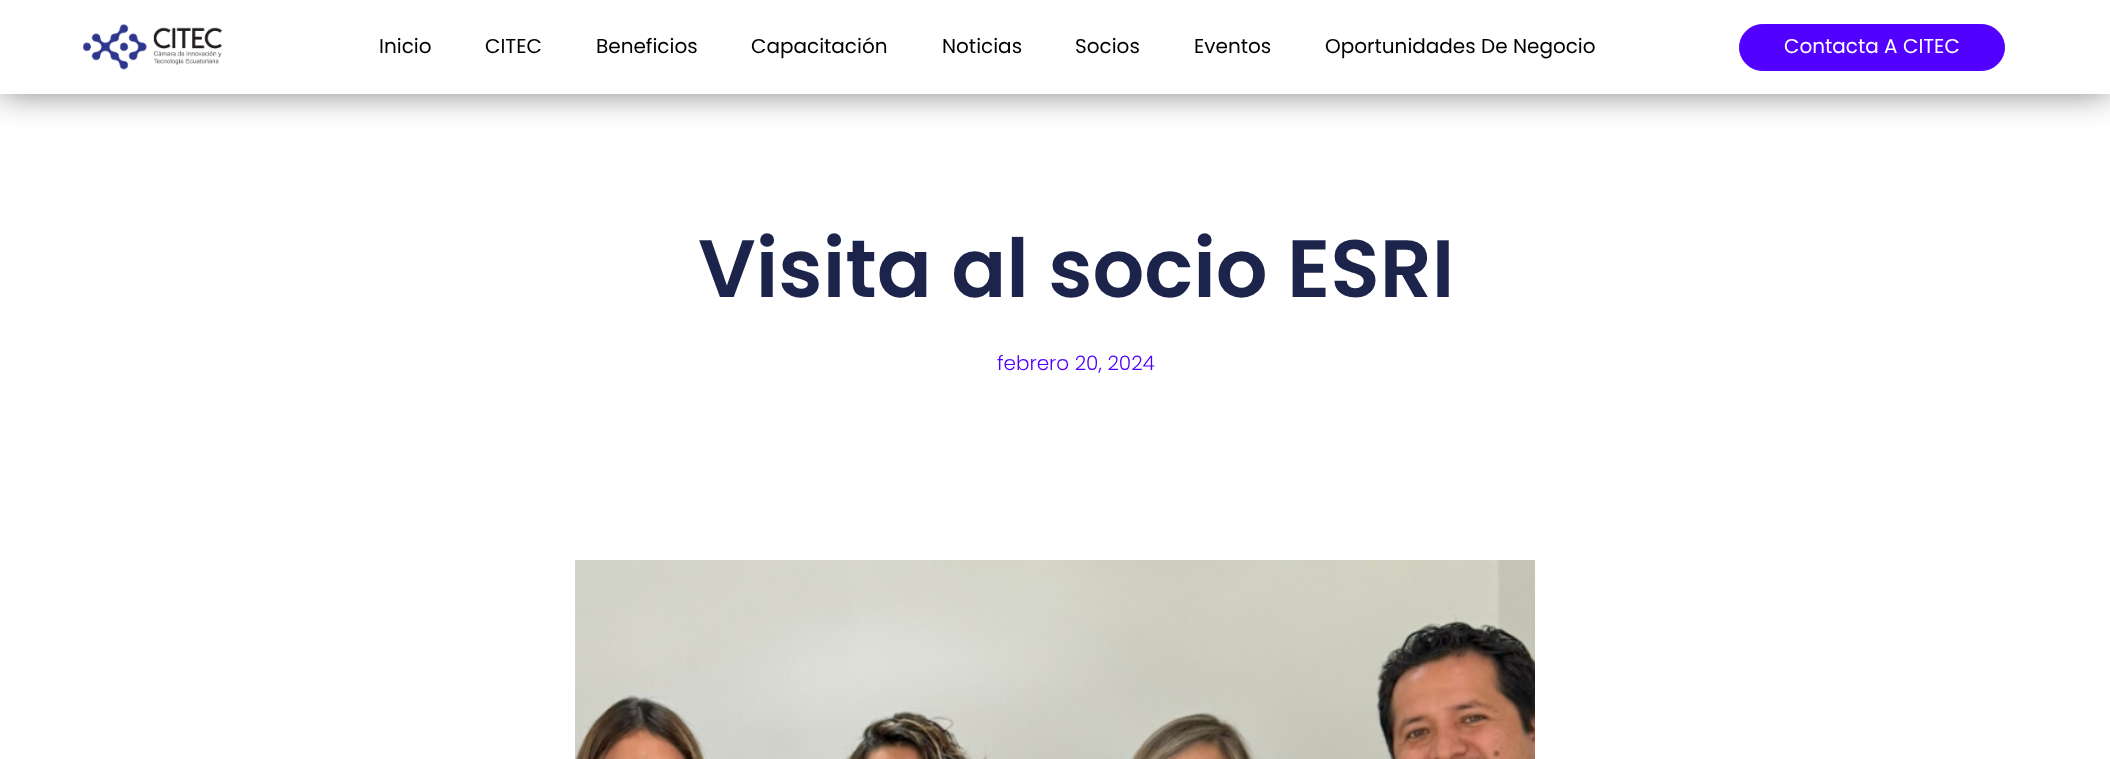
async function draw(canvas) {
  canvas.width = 2110
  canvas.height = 759
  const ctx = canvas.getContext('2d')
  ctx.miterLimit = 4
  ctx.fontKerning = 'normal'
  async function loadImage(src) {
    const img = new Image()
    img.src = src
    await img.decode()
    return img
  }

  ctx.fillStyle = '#fff'
  ctx.fillRect(0, 0, 2110, 759)
  ctx.fillStyle = '#00000099'
  ctx.filter = 'blur(18px)'
  ctx.beginPath()
  ctx.rect(0, -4, 2110, 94)
  ctx.fill()
  ctx.filter = 'none'
  ctx.fillStyle = '#fff'
  ctx.fillRect(0, 0, 2110, 94)
  ctx.drawImage(await loadImage('image0.png'), 82, 24, 141, 46)
  ctx.font = '20px Poppins'
  ctx.fillStyle = '#000'
  ctx.fillText('Inicio', 379, 53)
  ctx.fillText('CITEC', 485, 53)
  ctx.fillText('Beneficios', 596, 53)
  ctx.fillText('Capacitación', 751, 53)
  ctx.fillText('Noticias', 942, 53)
  ctx.fillText('Socios', 1075, 53)
  ctx.fillText('Eventos', 1194, 53)
  ctx.fillText('Oportunidades De Negocio', 1325, 53)
  ctx.fillStyle = '#5200ff'
  ctx.beginPath()
  ctx.roundRect(1739.5, 24.5, 265, 46, 23)
  ctx.fill()
  ctx.strokeStyle = '#5200ff'
  ctx.stroke()
  ctx.fillStyle = '#fff'
  ctx.fillText('Contacta A CITEC', 1784, 53)
  ctx.font = '600 81.25px Poppins'
  ctx.fillStyle = '#1c244b'
  ctx.fillText('Visita al socio ESRI', 698, 297)
  ctx.font = '300 20px Poppins'
  ctx.fillStyle = '#5200ff'
  ctx.fillText('febrero 20, 2024', 997, 370)
  ctx.drawImage(await loadImage('image1.png'), 575, 560, 960, 199)
}

draw(document.querySelector('canvas'))
